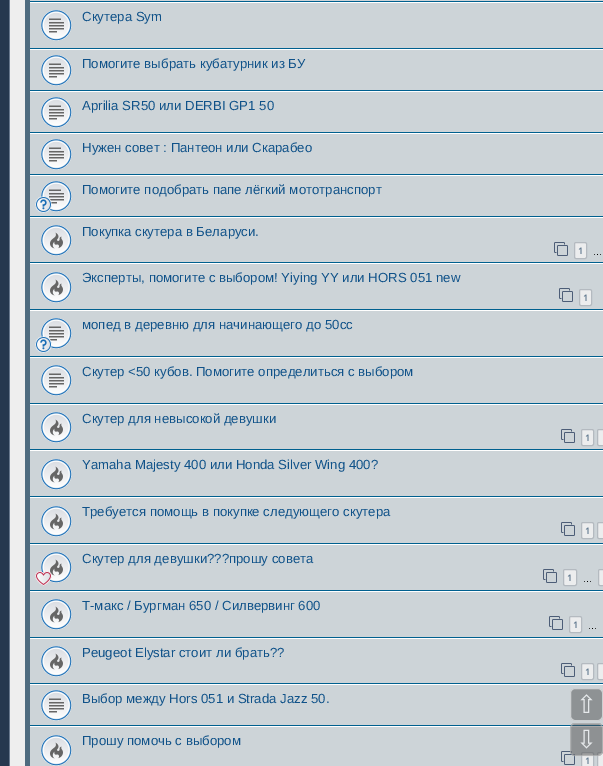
%!PS
<< /PageSize [603 766] /PageUsesTransparency true >> setpagedevice
/rgb { dup -16 bitshift 255 div exch dup -8 bitshift 255 and 255 div exch 255 and 255 div setrgbcolor } def
/font { [ exch dup neg 0 0 3 -1 roll 0 0 ] selectfont } def
/text { moveto show } def
/alpha { dup .setfillconstantalpha .setstrokeconstantalpha } def
/roundrect { 5 dict begin { /r /h /w /y /x } { exch def } forall
  x r add y moveto x w add y 2 copy h add r arct x w add y h add x 1 index r arct
  x y h add x y r arct x y 2 copy exch w add exch r arct closepath end } def
/picture { 5 dict begin { /h /w /y /x /name } { exch def } forall
  gsave x y translate w h scale
  w h 8 [w 0 0 h 0 0] name (r) file false 3 colorimage grestore end } def
0 .pushpdf14devicefilter
0 766 translate 1 -1 scale
4 setmiterlimit
/s1 { /LiberationSans-Regular 13.2 font 16#105289 rgb } def
/s2 { /OpenSans-SemiBold 9 font 16#5C758C rgb } def
/s3 { /LiberationSans-Regular 9 font 16#000000 rgb } def
/s4 { /DejaVuSans-Regular 25 font 16#E6E9EB rgb } def
16#26384F rgb
0 0 603 766 rectfill
16#EEEEEE rgb
10 0 15 766 rectfill
16#69798E rgb
9 0 1 766 rectfill
16#4E6B7F rgb
25 0 5 766 rectfill
16#CDD4D8 rgb
30 0 573 1 rectfill
16#00608F rgb
30 1 573 1 rectfill
16#CDD4D8 rgb
30 3 573 45 rectfill
16#FFFFFF rgb
30 2 573 1 rectfill
16#00608F rgb
30 48 573 1 rectfill
(pic1.raw) 41 10 31 31 picture
s1
(Скутера Sym) 82 21 text
16#CDD4D8 rgb
30 50 573 40 rectfill
16#FFFFFF rgb
30 49 573 1 rectfill
16#00608F rgb
30 90 573 1 rectfill
(pic1.raw) 41 55 31 31 picture
s1
(Помогите выбрать кубатурник из БУ) 82 68 text
16#CDD4D8 rgb
30 92 573 40 rectfill
16#FFFFFF rgb
30 91 573 1 rectfill
16#00608F rgb
30 132 573 1 rectfill
(pic1.raw) 41 97 31 31 picture
s1
(Aprilia SR50 или DERBI GP1 50) 82 110 text
16#CDD4D8 rgb
30 134 573 40 rectfill
16#FFFFFF rgb
30 133 573 1 rectfill
16#00608F rgb
30 174 573 1 rectfill
(pic1.raw) 41 139 31 31 picture
s1
(Нужен совет : Пантеон или Скарабео) 82 152 text
16#CDD4D8 rgb
30 176 573 40 rectfill
16#FFFFFF rgb
30 175 573 1 rectfill
16#00608F rgb
30 216 573 1 rectfill
(pic1.raw) 41 181 31 31 picture
(pic2.raw) 35 196 17 17 picture
s1
(Помогите подобрать папе лёгкий мототранспорт) 82 194 text
16#CDD4D8 rgb
30 218 573 44 rectfill
16#FFFFFF rgb
30 217 573 1 rectfill
16#00608F rgb
30 262 573 1 rectfill
(pic3.raw) 41 225 31 31 picture
s1
(Покупка скутера в Беларуси.) 82 236 text
(pic4.raw) 554 242 14 14 picture
16#ECEDEE rgb
574.5 242.5 12 16 1.5 roundrect gsave fill grestore
16#B4BAC0 rgb
stroke
s2
(1) 578 254 text
s3
(…) 593 255 text
16#CDD4D8 rgb
30 264 573 45 rectfill
16#FFFFFF rgb
30 263 573 1 rectfill
16#00608F rgb
30 309 573 1 rectfill
(pic3.raw) 41 272 31 31 picture
s1
(Эксперты, помогите с выбором! Yiying YY или HORS 051 new) 82 282 text
(pic4.raw) 559 288 14 14 picture
16#ECEDEE rgb
579.5 289.5 12 16 1.5 roundrect gsave fill grestore
16#B4BAC0 rgb
stroke
s2
(1) 583 301 text
16#CDD4D8 rgb
30 311 573 45 rectfill
16#FFFFFF rgb
30 310 573 1 rectfill
16#00608F rgb
30 356 573 1 rectfill
(pic1.raw) 41 318 31 31 picture
(pic5.raw) 35 336 17 17 picture
s1
(мопед в деревню для начинающего до 50сс) 82 329 text
16#CDD4D8 rgb
30 358 573 45 rectfill
16#FFFFFF rgb
30 357 573 1 rectfill
16#00608F rgb
30 403 573 1 rectfill
(pic1.raw) 41 365 31 31 picture
s1
(Скутер <50 кубов. Помогите определиться с выбором) 82 376 text
16#CDD4D8 rgb
30 405 573 44 rectfill
16#FFFFFF rgb
30 404 573 1 rectfill
16#00608F rgb
30 449 573 1 rectfill
(pic3.raw) 41 412 31 31 picture
s1
(Скутер для невысокой девушки) 82 423 text
(pic4.raw) 561 429 14 14 picture
16#ECEDEE rgb
581.5 429.5 12 16 1.5 roundrect gsave fill grestore
16#B4BAC0 rgb
stroke
s2
(1) 585 441 text
16#ECEDEE rgb
597.5 429.5 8 16 1.5 roundrect gsave fill grestore
16#B4BAC0 rgb
stroke
16#CDD4D8 rgb
30 451 573 45 rectfill
16#FFFFFF rgb
30 450 573 1 rectfill
16#00608F rgb
30 496 573 1 rectfill
(pic3.raw) 41 459 31 31 picture
s1
(Yamaha Majesty 400 или Honda Silver Wing 400?) 82 469 text
16#CDD4D8 rgb
30 498 573 45 rectfill
16#FFFFFF rgb
30 497 573 1 rectfill
16#00608F rgb
30 543 573 1 rectfill
(pic3.raw) 41 506 31 31 picture
s1
(Требуется помощь в покупке следующего скутера) 82 516 text
(pic4.raw) 561 522 14 14 picture
16#ECEDEE rgb
581.5 522.5 12 16 1.5 roundrect gsave fill grestore
16#B4BAC0 rgb
stroke
s2
(1) 585 534 text
16#ECEDEE rgb
597.5 522.5 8 16 1.5 roundrect gsave fill grestore
16#B4BAC0 rgb
stroke
16#CDD4D8 rgb
30 545 573 45 rectfill
16#FFFFFF rgb
30 544 573 1 rectfill
16#00608F rgb
30 590 573 1 rectfill
(pic3.raw) 41 552 31 31 picture
(pic6.raw) 35 571 17 15 picture
s1
(Скутер для девушки???прошу совета) 82 563 text
(pic4.raw) 543 569 14 14 picture
16#ECEDEE rgb
563.5 569.5 13 16 1.5 roundrect gsave fill grestore
16#B4BAC0 rgb
stroke
s2
(1) 567 581 text
16#ECEDEE rgb
598.5 569.5 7 16 1.5 roundrect gsave fill grestore
16#B4BAC0 rgb
stroke
s3
(…) 583 582 text
16#CDD4D8 rgb
30 592 573 45 rectfill
16#FFFFFF rgb
30 591 573 1 rectfill
16#00608F rgb
30 637 573 1 rectfill
(pic3.raw) 41 599 31 31 picture
s1
(Т-макс / Бургман 650 / Силвервинг 600) 82 610 text
(pic4.raw) 549 616 14 14 picture
16#ECEDEE rgb
569.5 616.5 12 16 1.5 roundrect gsave fill grestore
16#B4BAC0 rgb
stroke
s2
(1) 573 628 text
s3
(…) 588 629 text
16#CDD4D8 rgb
30 639 573 44 rectfill
16#FFFFFF rgb
30 638 573 1 rectfill
16#00608F rgb
30 683 573 1 rectfill
(pic3.raw) 41 646 31 31 picture
s1
(Peugeot Elystar cтоит ли брать??) 82 657 text
(pic4.raw) 561 663 14 14 picture
16#ECEDEE rgb
581.5 663.5 12 16 1.5 roundrect gsave fill grestore
16#B4BAC0 rgb
stroke
s2
(1) 585 675 text
16#ECEDEE rgb
597.5 663.5 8 16 1.5 roundrect gsave fill grestore
16#B4BAC0 rgb
stroke
16#CDD4D8 rgb
30 685 573 40 rectfill
16#FFFFFF rgb
30 684 573 1 rectfill
16#00608F rgb
30 725 573 1 rectfill
(pic1.raw) 41 690 31 31 picture
s1
(Выбор между Hors 051 и Strada Jazz 50.) 82 703 text
16#CDD4D8 rgb
30 727 573 39 rectfill
16#FFFFFF rgb
30 726 573 1 rectfill
(pic3.raw) 41 735 31 31 picture
s1
(Прошу помочь с выбором) 82 745 text
(pic4.raw) 561 751 14 14 picture
16#ECEDEE rgb
581.5 752.5 12 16 1.5 roundrect gsave fill grestore
16#B4BAC0 rgb
stroke
s2
(1) 585 764 text
16#ECEDEE rgb
597.5 752.5 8 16 1.5 roundrect gsave fill grestore
16#B4BAC0 rgb
stroke
16#8E9294 rgb
570.5 688.5 32 32 4.5 roundrect gsave fill grestore
16#CDD0D2 rgb
stroke
s4
(⇧) 576 713 text
0.5 alpha
16#4F4F4F rgb
570 723 33 33 5 roundrect fill
16#CCCCCC rgb
570.5 723.5 32 32 4.5 roundrect stroke
1 alpha
s4
(⇩) 576 748 text
.poppdf14devicefilter showpage
